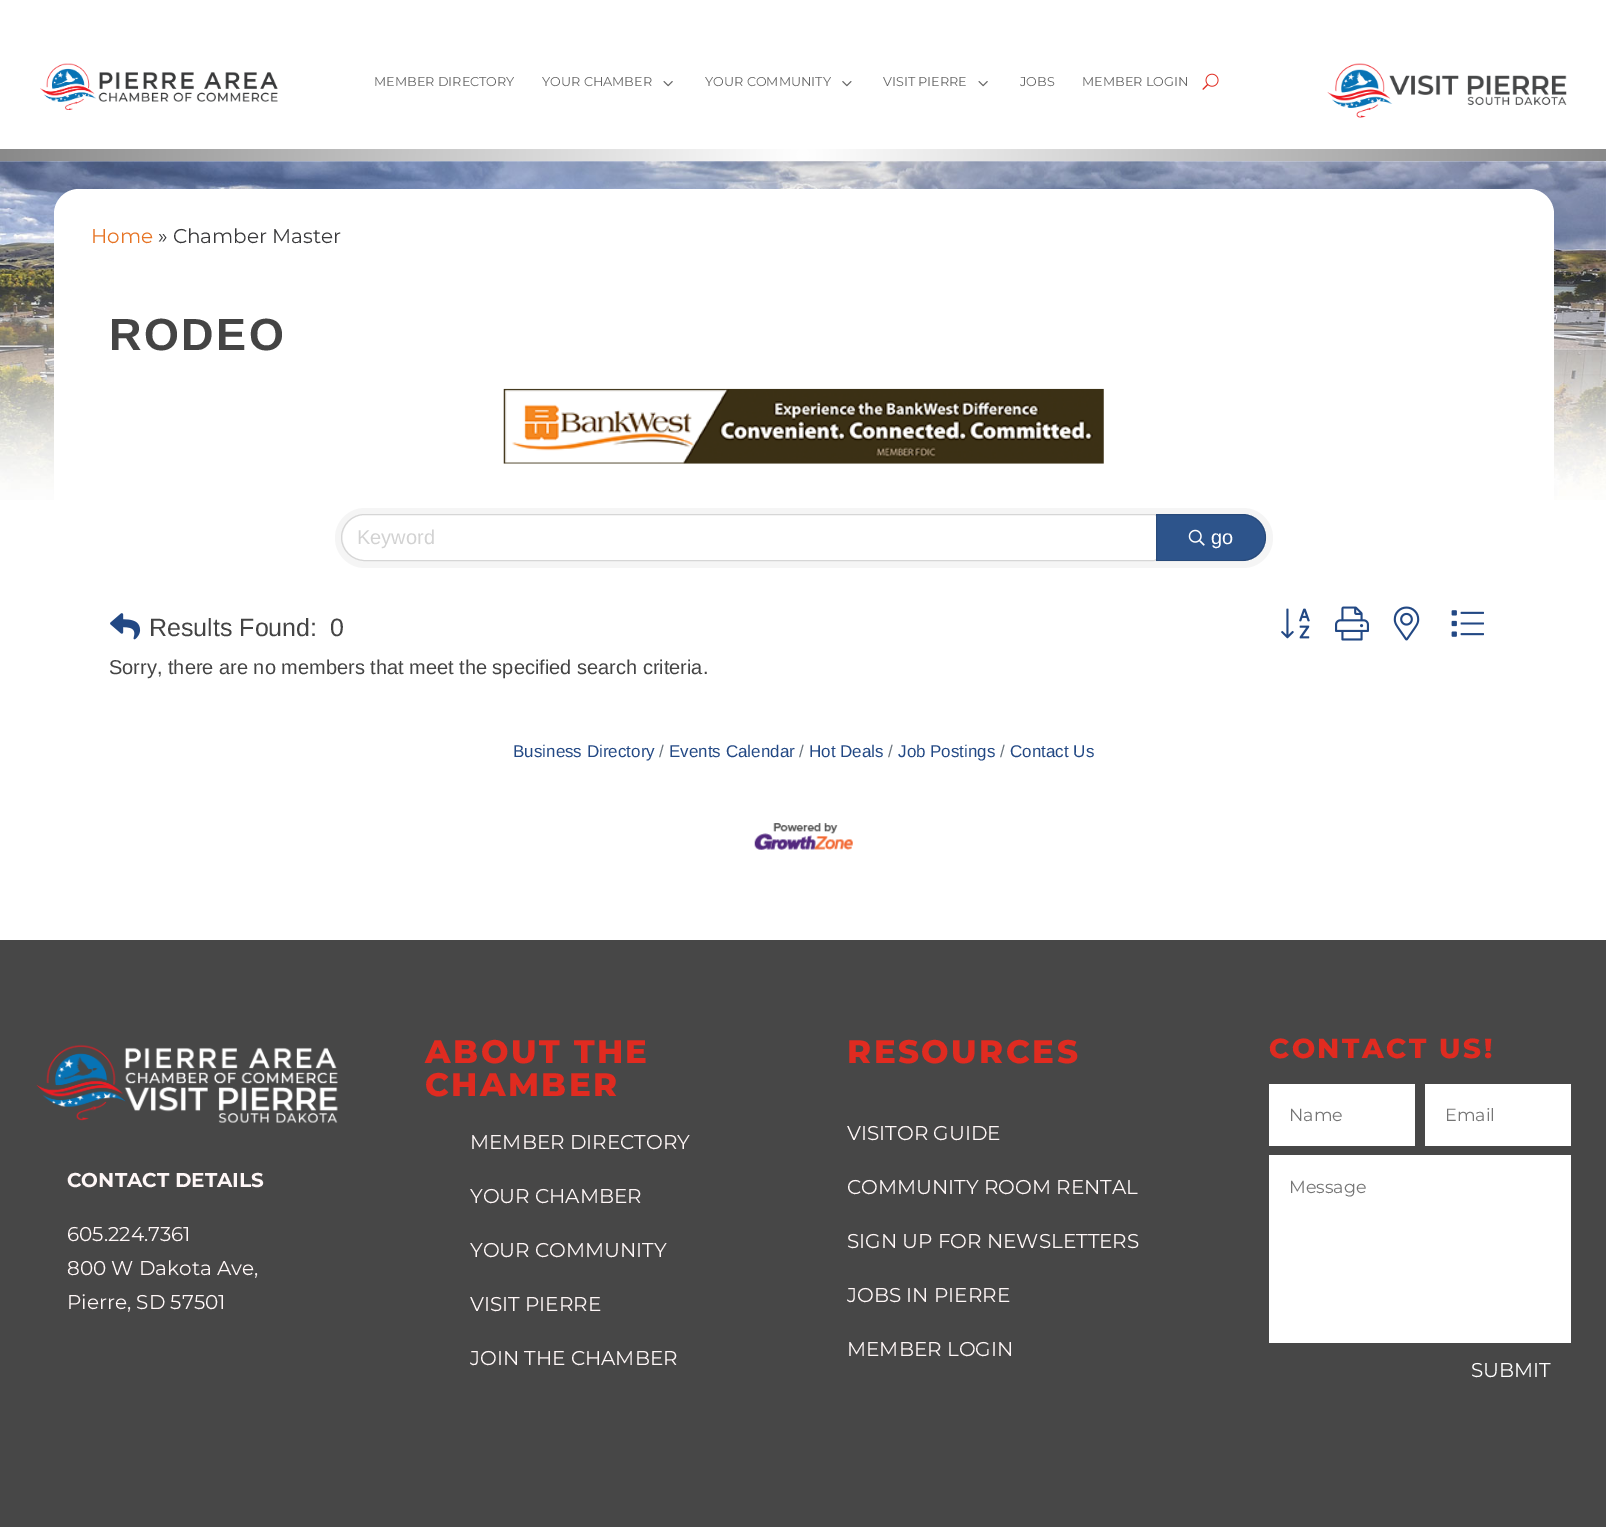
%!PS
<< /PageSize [1606 1527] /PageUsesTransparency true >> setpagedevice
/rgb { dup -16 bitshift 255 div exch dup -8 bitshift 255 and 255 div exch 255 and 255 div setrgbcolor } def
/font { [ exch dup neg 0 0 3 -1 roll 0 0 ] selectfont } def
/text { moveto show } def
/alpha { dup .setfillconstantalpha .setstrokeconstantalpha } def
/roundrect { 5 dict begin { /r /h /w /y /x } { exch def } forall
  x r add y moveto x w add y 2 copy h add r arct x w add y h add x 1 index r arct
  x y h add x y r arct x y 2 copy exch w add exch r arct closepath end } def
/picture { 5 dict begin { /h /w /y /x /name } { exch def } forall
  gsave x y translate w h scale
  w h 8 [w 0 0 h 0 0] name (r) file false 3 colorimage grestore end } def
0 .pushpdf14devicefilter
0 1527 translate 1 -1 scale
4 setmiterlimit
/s1 { /Montserrat-Thin 12.8 font 16#666666 rgb } def
/s2 { /Montserrat-Thin 20 font 16#E67425 rgb } def
/s3 { /Montserrat-Thin 20 font 16#39393B rgb } def
/s4 { /LiberationSans-Regular 20 font 16#D2D2D2 rgb } def
/s5 { /LiberationSans-Regular 20 font 16#FFFFFF rgb } def
/s6 { /LiberationSans-Regular 25 font 16#444444 rgb } def
/s7 { /LiberationSans-Regular 20 font 16#444444 rgb } def
/s8 { /LiberationSans-Regular 17 font 16#224884 rgb } def
/s9 { /LiberationSans-Regular 17 font 16#6C757D rgb } def
/s10 { /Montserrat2-Thin 20 font 16#FFF7F7 rgb } def
/s11 { /Montserrat-Thin 20 font 16#FFF7F7 rgb } def
/s12 { /Montserrat-Thin 17.5 font 16#757575 rgb } def
/s13 { /Montserrat-Thin 20 font 16#FFFFFF rgb } def
16#FFFFFF rgb
0 0 1606 1527 rectfill
(pic1.raw) 40 63 238 47 picture
s1
(MEMBER DIRECTORY) 374 86 text
(YOUR CHAMBER) 542 86 text
(pic2.raw) 663 81 10 6 picture
(YOUR COMMUNITY) 705 86 text
(pic3.raw) 842 81 10 6 picture
(VISIT PIERRE) 883 86 text
(pic2.raw) 978 81 10 6 picture
(JOBS) 1020 86 text
(MEMBER LOGIN) 1082 86 text
(pic4.raw) 1202 73 17 17 picture
(pic5.raw) 1327 63 240 55 picture
gsave 0 149 moveto 1606 149 lineto 1606 161 lineto 0 161 lineto closepath clip newpath 803 155 translate 803 803 scale
<< /ShadingType 3 /ColorSpace /DeviceRGB /Coords [0 0 0 0 0 1] /Extend [true true] /Function << /FunctionType 2 /Domain [0 1] /C0 [1 1 1] /C1 [0.537 0.537 0.537] /N 1 >> >> shfill grestore
(pic6.raw) 0 161 1606 339 picture
16#FFFFFF rgb
54 189 1500 720 25 roundrect fill
s2
(Home) 91 243 text
s3
(» Chamber Master) 158 243 text
/LiberationSans-Bold 45 font
16#444444 rgb
109 350 moveto 2.5 0 (RODEO) ashow
(pic7.raw) 503 388 601 76 picture
16#F5F5F5 rgb
335 508 938 60 30 roundrect fill
16#FFFFFF rgb
365.5 515 moveto 1153.5 515 lineto 1155 515 1156 516 1156 517.5 curveto 1156 557.5 lineto 1156 559 1155 560 1153.5 560 curveto 365.5 560 lineto 353 560 343 550 343 537.5 curveto 343 525 353 515 365.5 515 curveto closepath fill
16#D6D6D6 rgb
364.5 514.5 moveto 1154 514.5 lineto 1156 514.5 1157.5 516 1157.5 518 curveto 1157.5 557 lineto 1157.5 559 1156 560.5 1154 560.5 curveto 364.5 560.5 lineto 352 560.5 341.5 550 341.5 537.5 curveto 341.5 525 352 514.5 364.5 514.5 curveto closepath stroke
s4
(Keyword) 357 544 text
16#2D548B rgb
1156 514 moveto 1242.5 514 lineto 1255.5 514 1266 524.5 1266 537.5 curveto 1266 550.5 1255.5 561 1242.5 561 curveto 1156 561 lineto closepath fill
0.12 alpha
16#000000 rgb
1156.5 514.5 moveto 1242.5 514.5 lineto 1255 514.5 1265.5 525 1265.5 537.5 curveto 1265.5 550 1255 560.5 1242.5 560.5 curveto 1156.5 560.5 lineto closepath stroke
1 alpha
(pic8.raw) 1188 529 17 17 picture
s5
(go) 1211 544 text
(pic9.raw) 110 613 31 27 picture
s6
(Results Found:) 149 636 text
(0) 330 636 text
(pic10.raw) 1281 608 29 31 picture
(pic11.raw) 1335 606 34 35 picture
(pic12.raw) 1393 606 27 35 picture
(pic13.raw) 1451 610 33 27 picture
s7
(Sorry, there are no members that meet the specified search criteria.) 109 674 text
s8
(Business Directory) 513 757 text
s9
(/) 659 757 text
s8
(Events Calendar) 669 757 text
s9
(/) 799 757 text
s8
(Hot Deals) 809 757 text
s9
(/) 888 757 text
s8
(Job Postings) 898 757 text
s9
(/) 1000 757 text
s8
(Contact Us) 1010 757 text
(pic14.raw) 754 823 99 27 picture
16#474747 rgb
0 940 1606 587 rectfill
(pic15.raw) 36 1044 302 79 picture
s10
(CONTACT DETAILS) 67 1187 text
s11
(605.224.7361) 67 1241 text
(800 W Dakota Ave,) 67 1275 text
(Pierre, SD 57501) 67 1309 text
/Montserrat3-Thin 32.5 font
16#E02B20 rgb
425 1063 moveto 2.5 0 (ABOUT THE) ashow
425 1096 moveto 2.5 0 (CHAMBER) ashow
s11
(MEMBER DIRECTORY) 470 1149 text
(YOUR CHAMBER) 470 1203 text
(YOUR COMMUNITY) 470 1257 text
(VISIT PIERRE) 470 1311 text
(JOIN THE CHAMBER) 470 1365 text
/Montserrat3-Thin 32.5 font
16#E02B20 rgb
847 1063 moveto 2.5 0 (RESOURCES) ashow
s11
(VISITOR GUIDE) 847 1140 text
(COMMUNITY ROOM RENTAL) 847 1194 text
(SIGN UP FOR NEWSLETTERS) 847 1248 text
(JOBS IN PIERRE) 847 1302 text
(MEMBER LOGIN) 847 1356 text
/Montserrat3-Thin 27.5 font
16#E02B20 rgb
1269 1058 moveto 2.5 0 (CONTACT US!) ashow
16#FFFFFF rgb
1269 1084 146 62 rectfill
s12
(Name) 1289 1121 text
16#FFFFFF rgb
1425 1084 146 62 rectfill
s12
(Email) 1445 1121 text
16#FFFFFF rgb
1269 1155 302 188 rectfill
s12
(Message) 1289 1193 text
s13
(SUBMIT) 1471 1377 text
.poppdf14devicefilter showpage
